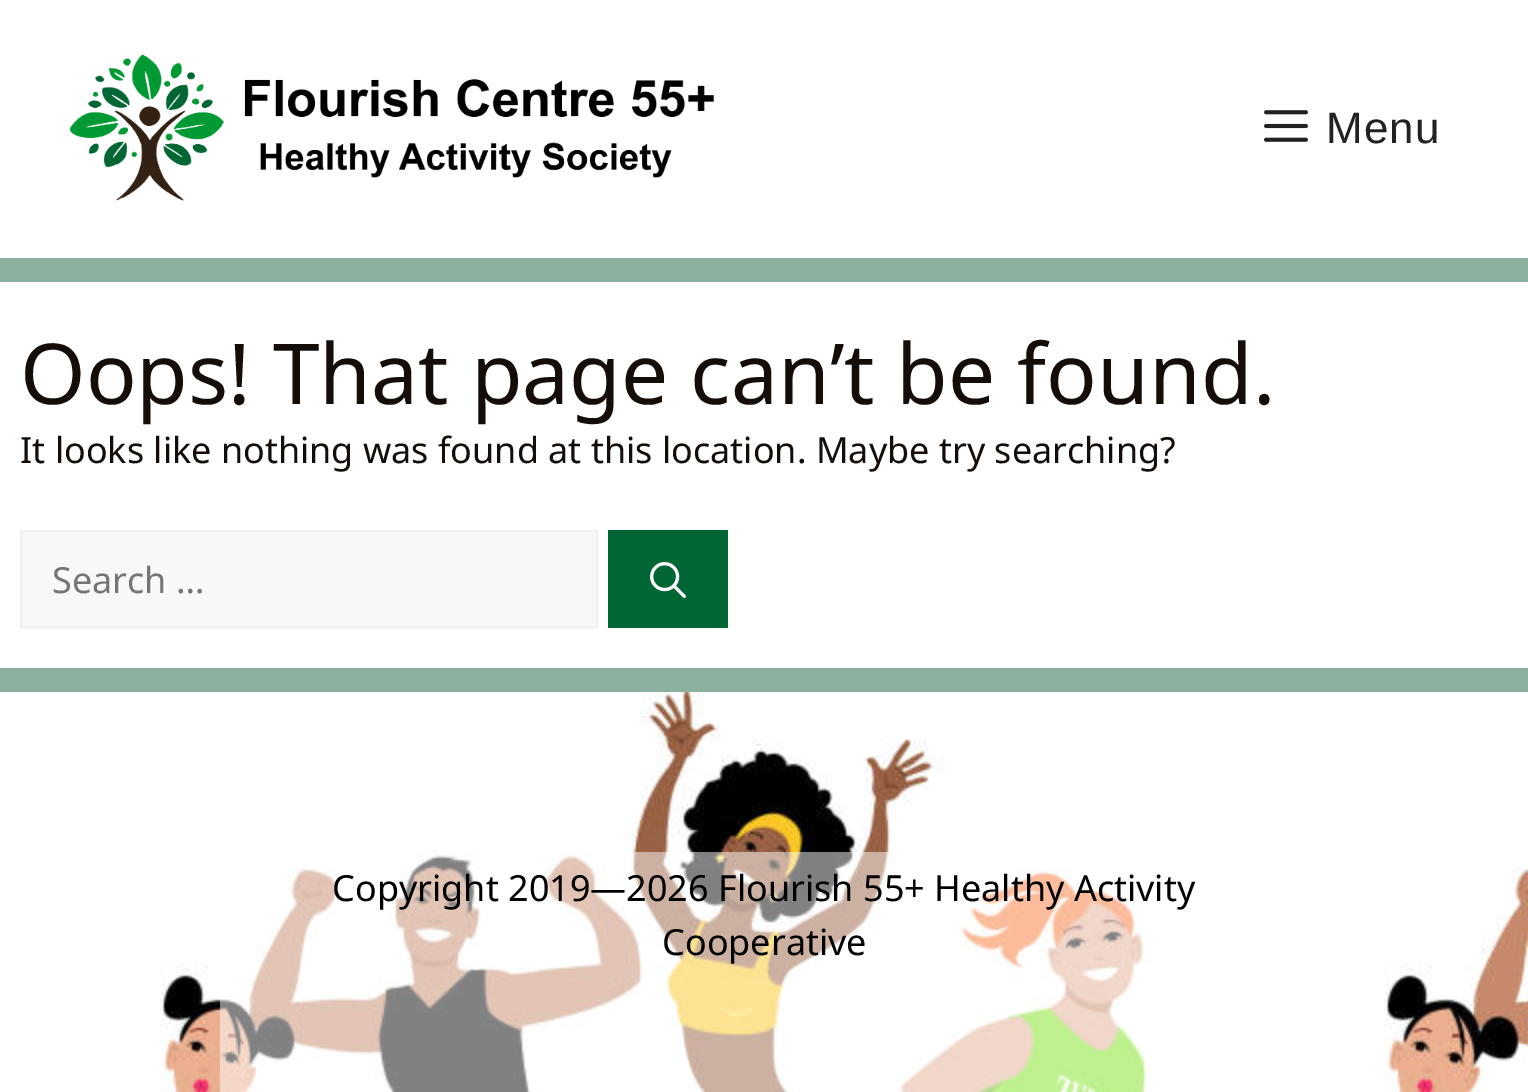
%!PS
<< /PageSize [1528 1092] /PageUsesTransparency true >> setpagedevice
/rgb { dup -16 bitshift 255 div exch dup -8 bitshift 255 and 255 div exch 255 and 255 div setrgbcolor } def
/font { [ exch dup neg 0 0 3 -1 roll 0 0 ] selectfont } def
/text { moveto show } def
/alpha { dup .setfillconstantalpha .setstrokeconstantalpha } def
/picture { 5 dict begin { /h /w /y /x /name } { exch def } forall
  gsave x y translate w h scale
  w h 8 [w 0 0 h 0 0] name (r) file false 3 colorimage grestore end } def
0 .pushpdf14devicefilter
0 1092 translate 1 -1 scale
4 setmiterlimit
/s1 { /NotoSans-Regular 84 font 16#140D08 rgb } def
/s2 { /NotoSans-Regular 36 font 16#140D08 rgb } def
/s3 { /NotoSans-Regular 36 font 16#757575 rgb } def
/s4 { /NotoSans-Regular 36 font 16#000000 rgb } def
16#8BB09D rgb
0 0 1528 1092 rectfill
16#FFFFFF rgb
0 0 1528 258 rectfill
(pic1.raw) 69 54 646 147 picture
(pic2.raw) 1264 110 44 32 picture
/LiberationSans-Regular 44 font
16#222222 rgb
1326 143 moveto 1 0 (Menu) ashow
16#FFFFFF rgb
0 282 1528 386 rectfill
s1
(Oops! That page can’t be found.) 20 404 text
s2
(It looks like nothing was found at this location. Maybe try searching?) 20 463 text
16#F7F8F9 rgb
21 531 moveto 597 531 lineto 597 627 lineto 21 627 lineto closepath gsave fill grestore
16#F0F0F0 rgb
2 setlinewidth
stroke
s3
(Search …) 52 593 text
16#006633 rgb
608 530 120 98 rectfill
(pic3.raw) 650 562 36 36 picture
(pic4.raw) 0 692 1528 400 picture
0.5 alpha
16#FFFFFF rgb
220 852 932 240 rectfill
1 alpha
s4
(Copyright 2019—2026 Flourish 55+ Healthy Activity) 332 901 text
(Cooperative) 662 955 text
.poppdf14devicefilter showpage
